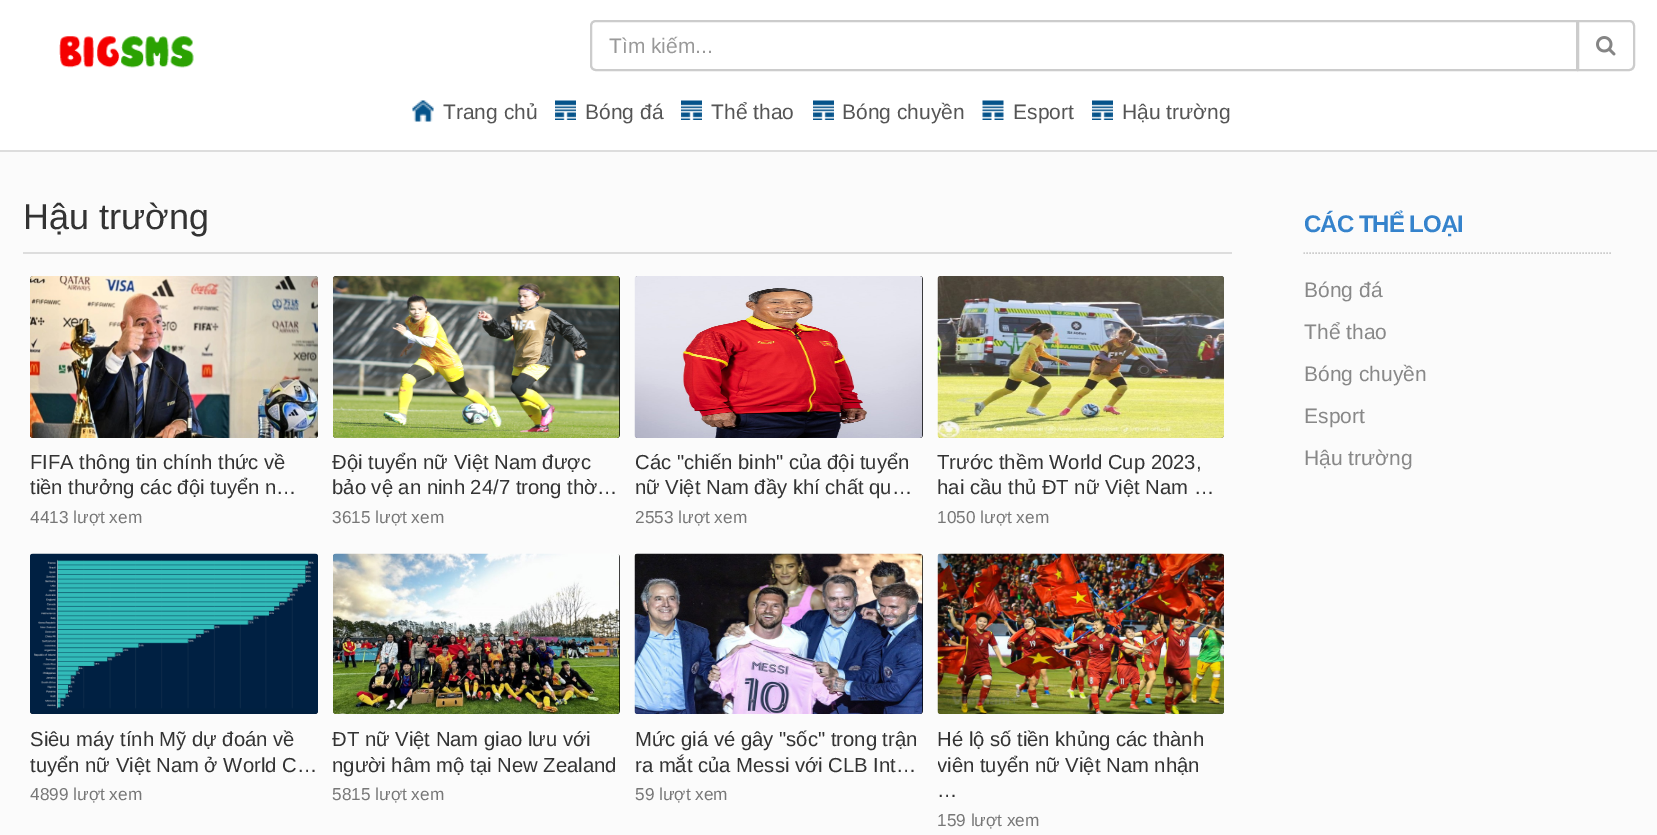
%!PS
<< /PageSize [1657 835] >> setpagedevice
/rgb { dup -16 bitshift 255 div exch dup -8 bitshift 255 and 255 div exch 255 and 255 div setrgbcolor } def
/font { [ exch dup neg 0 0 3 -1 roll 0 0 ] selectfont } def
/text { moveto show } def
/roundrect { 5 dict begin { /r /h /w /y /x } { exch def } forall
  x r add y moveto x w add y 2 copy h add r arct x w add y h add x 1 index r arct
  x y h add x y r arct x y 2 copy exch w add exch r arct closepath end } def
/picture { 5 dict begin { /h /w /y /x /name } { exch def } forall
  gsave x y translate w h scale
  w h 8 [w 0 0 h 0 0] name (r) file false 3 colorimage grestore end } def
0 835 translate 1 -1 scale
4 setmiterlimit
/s1 { /LiberationSans-Regular 21 font 16#999999 rgb } def
/s2 { /LiberationSans-Regular 21 font 16#555555 rgb } def
/s3 { /LiberationSans-Regular 36 font 16#333333 rgb } def
/s4 { /LiberationSans-Regular 20.25 font 16#333333 rgb } def
/s5 { /LiberationSans-Regular 17.25 font 16#777777 rgb } def
/s6 { /LiberationSans-Regular 21 font 16#888888 rgb } def
16#FBFBFB rgb
0 0 1657 835 rectfill
16#FFFFFF rgb
0 0 1657 150 rectfill
16#DDDDDD rgb
0 150 1657 2 rectfill
(pic1.raw) 59 36 135 32 picture
16#CCCCCC rgb
2 setlinewidth
596 21 moveto 1577 21 lineto 1577 70 lineto 596 70 lineto 593 70 591 68 591 65 curveto 591 26 lineto 591 23 593 21 596 21 curveto closepath stroke
s1
(Tìm kiếm...) 609 53 text
16#FFFFFF rgb
1578 21 moveto 1629 21 lineto 1632 21 1634 23 1634 26 curveto 1634 65 lineto 1634 68 1632 70 1629 70 curveto 1578 70 lineto closepath gsave fill grestore
16#CCCCCC rgb
stroke
(pic2.raw) 1596 36 20 20 picture
(pic3.raw) 412 100 22 22 picture
s2
(Trang chủ) 443 119 text
(pic4.raw) 555 100 21 20 picture
(Bóng đá) 585 119 text
(pic4.raw) 681 100 21 20 picture
(Thể thao) 711 119 text
(pic4.raw) 813 100 21 20 picture
(Bóng chuyền) 842 119 text
(pic5.raw) 982 100 22 20 picture
(Esport) 1013 119 text
(pic6.raw) 1092 100 21 20 picture
(Hậu trường) 1122 119 text
16#DDDDDD rgb
23 252 1209 2 rectfill
s3
(Hậu trường) 23 229 text
(pic7.raw) 30 276 288 162 picture
s4
(FIFA thông tin chính thức về) 30 469 text
(tiền thưởng các đội tuyển n…) 30 494 text
s5
(4413 lượt xem) 30 523 text
16#000000 rgb
333 276 287 162 3 roundrect fill
(pic8.raw) 333 276 287 162 picture
s4
(Đội tuyển nữ Việt Nam được) 332 469 text
(bảo vệ an ninh 24/7 trong thờ…) 332 494 text
s5
(3615 lượt xem) 332 523 text
16#000000 rgb
635 276 288 162 3 roundrect fill
(pic9.raw) 634 276 289 162 picture
s4
(Các "chiến binh" của đội tuyển) 635 469 text
(nữ Việt Nam đầy khí chất qu…) 635 494 text
s5
(2553 lượt xem) 635 523 text
(pic10.raw) 937 276 287 162 picture
s4
(Trước thềm World Cup 2023,) 937 469 text
(hai cầu thủ ĐT nữ Việt Nam …) 937 494 text
s5
(1050 lượt xem) 937 523 text
(pic11.raw) 30 553 288 161 picture
s4
(Siêu máy tính Mỹ dự đoán về) 30 746 text
(tuyển nữ Việt Nam ở World C…) 30 772 text
s5
(4899 lượt xem) 30 800 text
16#000000 rgb
333 554 287 160 3 roundrect fill
(pic12.raw) 333 553 287 161 picture
s4
(ĐT nữ Việt Nam giao lưu với) 332 746 text
(người hâm mộ tại New Zealand) 332 772 text
s5
(5815 lượt xem) 332 800 text
16#000000 rgb
635 554 288 160 3 roundrect fill
(pic13.raw) 634 553 289 161 picture
s4
(Mức giá vé gây "sốc" trong trận) 635 746 text
(ra mắt của Messi với CLB Int…) 635 772 text
s5
(59 lượt xem) 635 800 text
(pic14.raw) 937 553 287 161 picture
s4
(Hé lộ số tiền khủng các thành) 937 746 text
gsave
938 726 286 77 rectclip
(viên tuyển nữ Việt Nam nhận) 937 772 text
grestore
(…) 937 797 text
s5
(159 lượt xem) 937 826 text
16#CCCCCC rgb
1.5 setlinewidth
[1.5 1.5] 0 setdash
1303.5 253 moveto 1612.5 253 lineto stroke
/LiberationSans-Bold 24 font
16#3583CC rgb
1304 232 moveto -1 0 (CÁC THỂ LOẠI) ashow
s6
(Bóng đá) 1304 297 text
(Thể thao) 1304 339 text
(Bóng chuyền) 1304 381 text
(Esport) 1304 423 text
(Hậu trường) 1304 465 text
showpage
